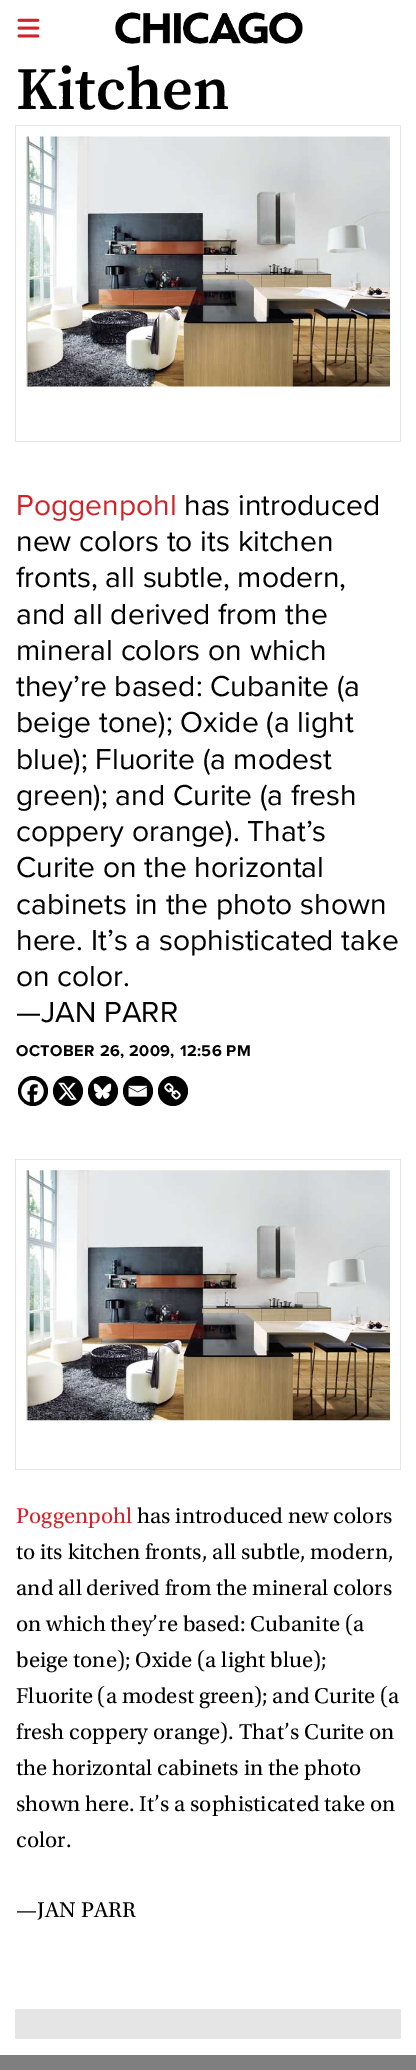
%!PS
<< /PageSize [416 2070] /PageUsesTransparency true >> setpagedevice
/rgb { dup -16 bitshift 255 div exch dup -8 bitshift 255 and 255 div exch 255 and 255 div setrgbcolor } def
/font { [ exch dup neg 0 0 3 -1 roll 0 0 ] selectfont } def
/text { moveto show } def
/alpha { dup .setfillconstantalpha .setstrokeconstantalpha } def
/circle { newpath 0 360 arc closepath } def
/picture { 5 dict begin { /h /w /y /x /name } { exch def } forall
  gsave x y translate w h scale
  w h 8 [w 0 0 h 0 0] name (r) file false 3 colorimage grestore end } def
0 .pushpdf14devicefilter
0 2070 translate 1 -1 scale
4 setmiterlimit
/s1 { /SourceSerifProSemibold-SemiBold 60 font 16#000000 rgb } def
/s2 { /ProximaNova-Regular 30 font 16#D2232A rgb } def
/s3 { /ProximaNova-Regular 30 font 16#000000 rgb } def
16#FFFFFF rgb
0 0 416 2070 rectfill
(pic1.raw) 17 18 23 20 picture
(pic2.raw) 115 12 188 32 picture
s1
(Kitchen) 16 109 text
16#E6E6E6 rgb
15 125 moveto 401 125 lineto 401 126 lineto 16 126 lineto closepath fill
0.1 alpha
16#000000 rgb
15 442 moveto 15 125 lineto 16 126 lineto 16 442 lineto closepath fill
1 alpha
16#E6E6E6 rgb
401 126 moveto 401 442 lineto 400 441 lineto 400 126 lineto closepath fill
0.1 alpha
16#000000 rgb
401 442 moveto 16 442 lineto 16 441 lineto 400 441 lineto closepath fill
1 alpha
(pic3.raw) 26 136 364 251 picture
s2
(Poggenpohl) 16 515 text
s3
(has introduced) 184 515 text
(new colors to its kitchen) 16 551 text
(fronts, all subtle, modern,) 16 587 text
(and all derived from the) 16 624 text
(mineral colors on which) 16 660 text
(they’re based: Cubanite \(a) 16 696 text
(beige tone\); Oxide \(a light) 16 732 text
(blue\); Fluorite \(a modest) 16 769 text
(green\); and Curite \(a fresh) 16 805 text
(coppery orange\). That’s) 16 841 text
(Curite on the horizontal) 16 877 text
(cabinets in the photo shown) 16 914 text
(here. It’s a sophisticated take) 16 950 text
(on color.) 16 986 text
(—JAN PARR) 16 1022 text
/ProximaNova-Bold 16.25 font
16 1056 moveto 0.4 0 (OCTOBER 26, 2009, 12:56 PM) ashow
33 1091 15 circle fill
(pic4.raw) 21 1080 23 23 picture
68 1091 15 circle fill
(pic5.raw) 58 1082 19 18 picture
103 1091 15 circle fill
(pic6.raw) 93 1083 19 16 picture
138 1091 15 circle fill
(pic7.raw) 128 1085 19 12 picture
173 1091 15 circle fill
(pic8.raw) 164 1083 17 17 picture
16#E6E6E6 rgb
15 1159 moveto 401 1159 lineto 401 1160 lineto 16 1160 lineto closepath fill
0.1 alpha
16#000000 rgb
15 1470 moveto 15 1159 lineto 16 1160 lineto 16 1470 lineto closepath fill
1 alpha
16#E6E6E6 rgb
401 1160 moveto 401 1470 lineto 400 1469 lineto 400 1160 lineto closepath fill
0.1 alpha
16#000000 rgb
401 1470 moveto 16 1470 lineto 16 1469 lineto 400 1469 lineto closepath fill
1 alpha
(pic9.raw) 26 1170 364 251 picture
/Utopia-Regular 22.5 font
16#D2232A rgb
16 1523 moveto 0.1 0 (Poggenpohl) ashow
16#000000 rgb
137 1523 moveto 0.1 0 (has introduced new colors) ashow
16 1559 moveto 0.1 0 (to its kitchen fronts, all subtle, modern,) ashow
16 1595 moveto 0.1 0 (and all derived from the mineral colors) ashow
16 1631 moveto 0.1 0 (on which they’re based: Cubanite \(a) ashow
16 1667 moveto 0.1 0 (beige tone\); Oxide \(a light blue\);) ashow
16 1703 moveto 0.1 0 (Fluorite \(a modest green\); and Curite \(a) ashow
16 1739 moveto 0.1 0 (fresh coppery orange\). That’s Curite on) ashow
16 1775 moveto 0.1 0 (the horizontal cabinets in the photo) ashow
16 1811 moveto 0.1 0 (shown here. It’s a sophisticated take on) ashow
16 1847 moveto 0.1 0 (color.) ashow
16 1917 moveto 0.1 0 (—JAN PARR) ashow
16#E5E5E5 rgb
15 2009 386 30 rectfill
16#7F7F7F rgb
0 2055 416 15 rectfill
.poppdf14devicefilter showpage
